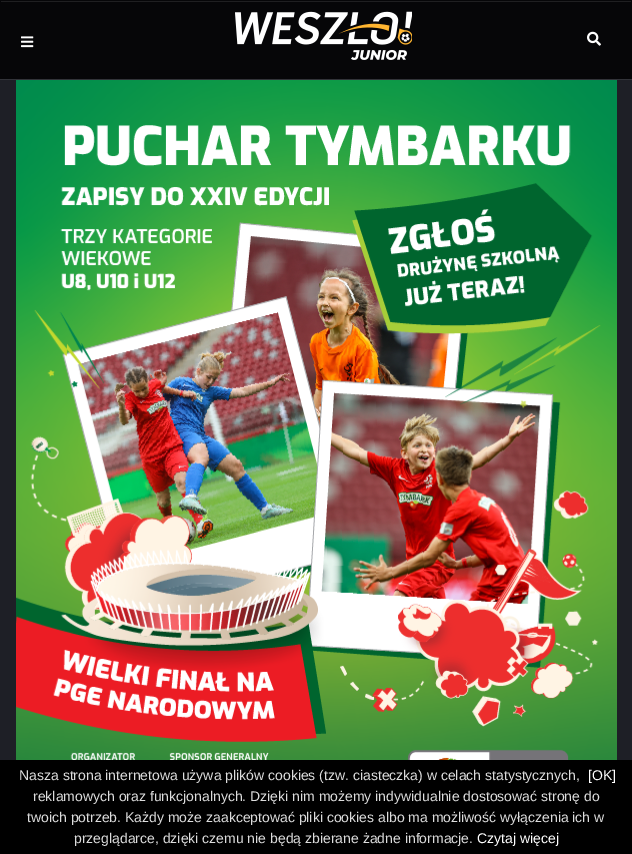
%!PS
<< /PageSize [632 854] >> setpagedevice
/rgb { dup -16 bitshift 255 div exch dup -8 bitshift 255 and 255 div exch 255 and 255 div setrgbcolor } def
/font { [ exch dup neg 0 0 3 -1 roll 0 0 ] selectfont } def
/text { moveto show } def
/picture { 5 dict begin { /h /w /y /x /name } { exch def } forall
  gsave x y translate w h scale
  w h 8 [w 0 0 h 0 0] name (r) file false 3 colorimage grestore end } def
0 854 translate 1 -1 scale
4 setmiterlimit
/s1 { /LiberationSans-Regular 14 font 16#DDDDDD rgb } def
/s2 { /LiberationSans-Regular 14 font 16#FFFFFF rgb } def
16#1E1F26 rgb
0 0 632 854 rectfill
16#323339 rgb
0 79 632 1 rectfill
16#060608 rgb
0 0 632 79 rectfill
16#1F1F21 rgb
1 1 630 1 rectfill
(pic1.raw) 587 31 14 15 picture
(pic2.raw) 21 36 13 12 picture
(pic3.raw) 235 11 177 49 picture
(pic4.raw) 16 80 601 680 picture
16#000000 rgb
0 760 632 94 rectfill
s1
(Nasza strona internetowa używa plików cookies \(tzw. ciasteczka\) w celach statystycznych,) 19 780 text
s2
([OK]) 588 780 text
s1
(reklamowych oraz funkcjonalnych. Dzięki nim możemy indywidualnie dostosować stronę do) 33 801 text
(twoich potrzeb. Każdy może zaakceptować pliki cookies albo ma możliwość wyłączenia ich w) 27 822 text
(przeglądarce, dzięki czemu nie będą zbierane żadne informacje.) 74 843 text
s2
(Czytaj więcej) 477 843 text
showpage
